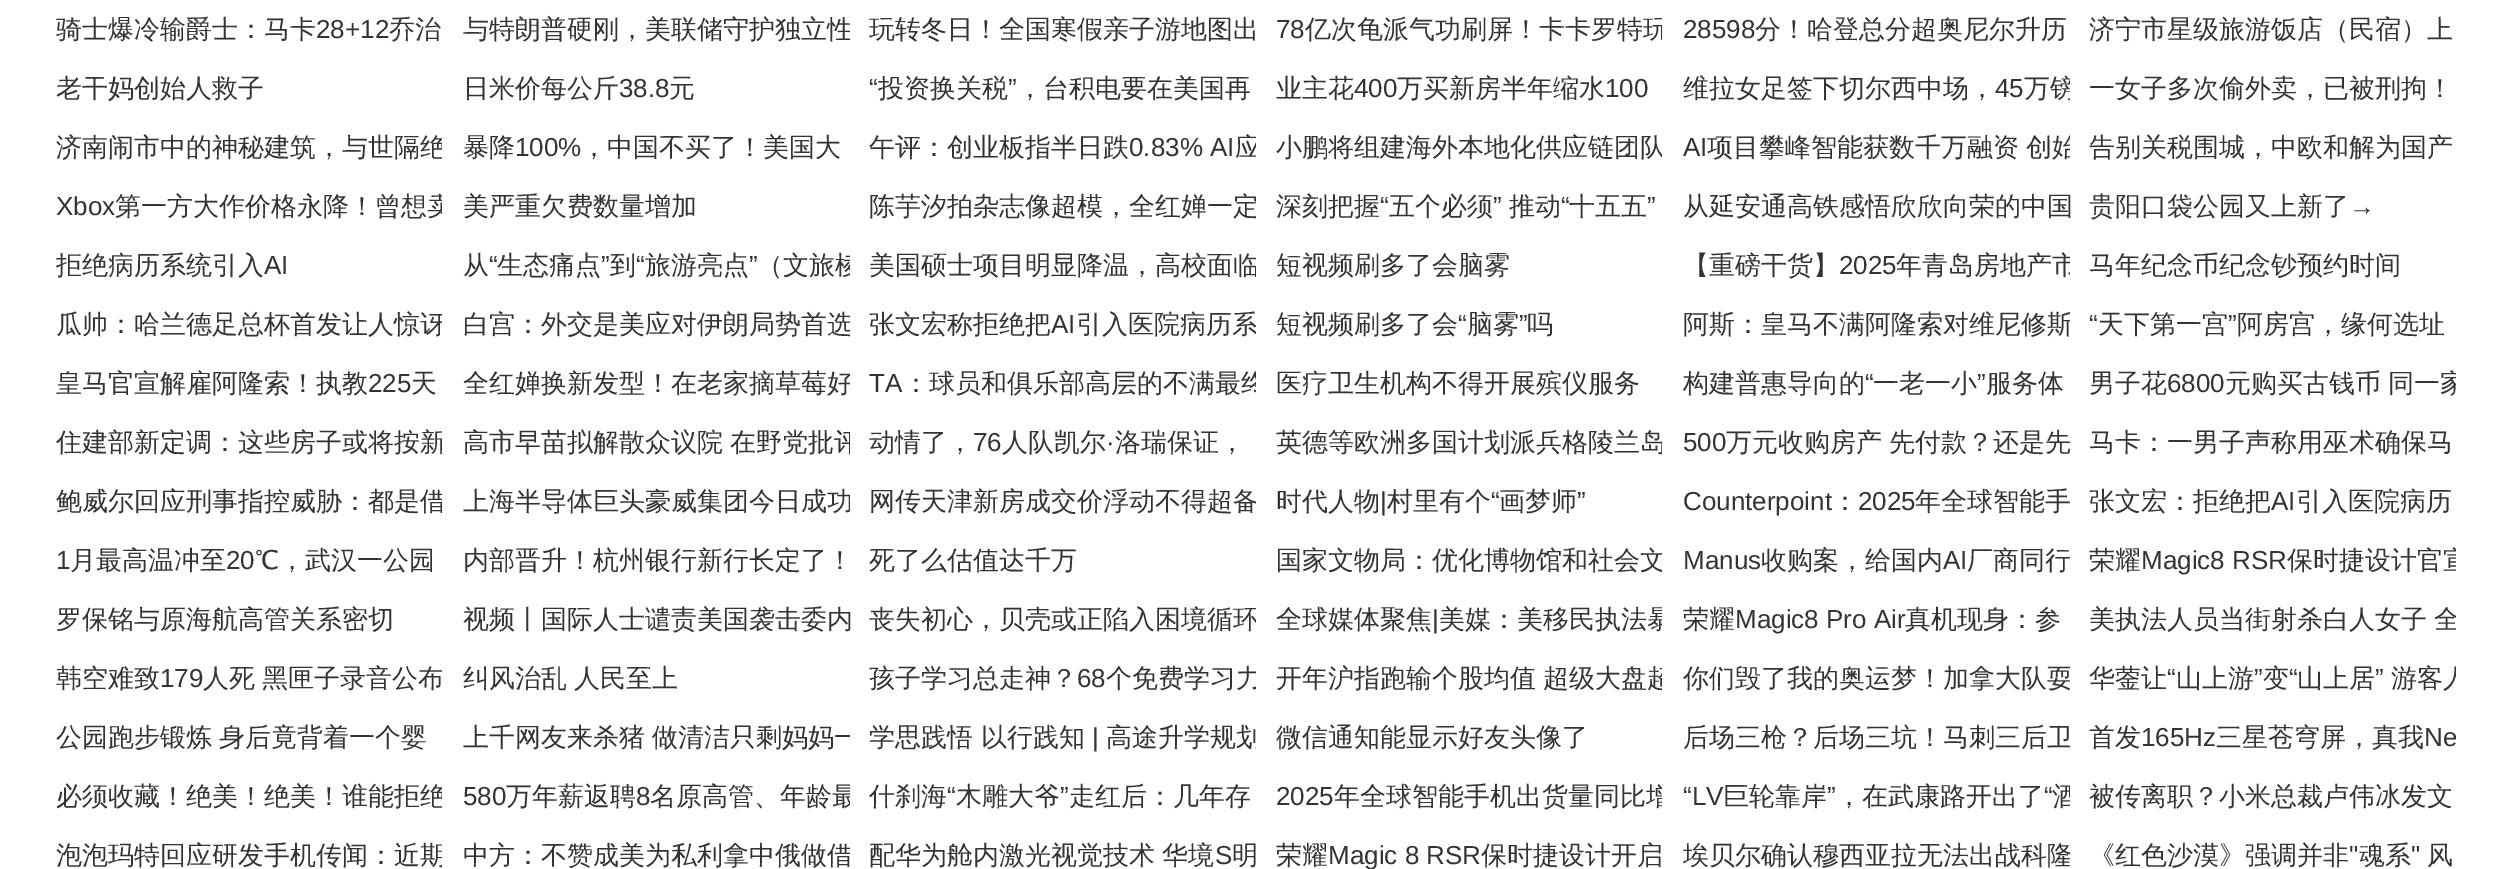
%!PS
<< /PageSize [2512 869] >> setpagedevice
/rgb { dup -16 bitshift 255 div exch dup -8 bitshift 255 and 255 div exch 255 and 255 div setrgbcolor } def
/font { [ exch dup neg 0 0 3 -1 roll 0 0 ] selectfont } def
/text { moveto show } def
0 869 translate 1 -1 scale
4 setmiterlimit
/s1 { /WenQuanYiZenHei-Medium 26 font 16#333333 rgb } def
/s2 { /LiberationSans-Regular 26 font 16#333333 rgb } def
16#FFFFFF rgb
0 0 2512 869 rectfill
s1
(骑士爆冷输爵士：马卡) 56 38 text
s2
(28+12) 316 38 text
s1
(乔治) 389 38 text
gsave
442 0 408 60 rectclip
(与特朗普硬刚，美联储守护独立性) 463 38 text
grestore
869 38 moveto -1 0 32 (玩转冬日！全国寒假亲子游地图出) widthshow
s2
(78) 1276 38 text
gsave
1256 0 406 60 rectclip
s1
(亿次龟派气功刷屏！卡卡罗特玩) 1305 38 text
grestore
(28598) 1683 38 text
/WenQuanYiZenHei-Medium 26 font
1755 38 moveto -1 0 32 (分！哈登总分超奥尼尔升历) widthshow
(济宁市星级旅游饭店（民宿）上) 2089 38 text
(老干妈创始人救子) 56 97 text
(日米价每公斤) 463 97 text
s2
(38.8) 619 97 text
s1
(元) 669 97 text
s2
(“) 869 97 text
s1
(投资换关税) 878 97 text
s2
(”) 1008 97 text
s1
(，台积电要在美国再) 1017 97 text
(业主花) 1276 97 text
s2
(400) 1354 97 text
s1
(万买新房半年缩水) 1397 97 text
s2
(100) 1605 97 text
s1
(维拉女足签下切尔西中场，) 1683 97 text
s2
(45) 1995 97 text
gsave
1662 60 408 58 rectclip
s1
(万镑) 2024 97 text
grestore
s1
(一女子多次偷外卖，已被刑拘！) 2089 97 text
gsave
56 118 386 60 rectclip
(济南闹市中的神秘建筑，与世隔绝) 56 156 text
grestore
(暴降) 463 156 text
s2
(100%) 515 156 text
s1
(，中国不买了！美国大) 581 156 text
(午评：创业板指半日跌) 869 156 text
s2
(0.83% AI) 1129 156 text
gsave
850 118 406 60 rectclip
s1
(应) 1235 156 text
grestore
gsave
1256 118 406 60 rectclip
s1
(小鹏将组建海外本地化供应链团队) 1276 156 text
grestore
(AI) 1683 156 text
gsave
1662 118 408 60 rectclip
/WenQuanYiZenHei-Medium 26 font
1707 156 moveto -1 0 32 (项目攀峰智能获数千万融资 创始) widthshow
grestore
s1
(告别关税围城，中欧和解为国产) 2089 156 text
s2
(Xbox) 56 215 text
gsave
56 178 386 58 rectclip
s1
(第一方大作价格永降！曾想卖) 115 215 text
grestore
s1
(美严重欠费数量增加) 463 215 text
gsave
850 178 406 58 rectclip
(陈芋汐拍杂志像超模，全红婵一定) 869 215 text
grestore
(深刻把握) 1276 215 text
s2
(“) 1380 215 text
s1
(五个必须) 1389 215 text
s2
(”) 1493 215 text
s1
(推动) 1509 215 text
s2
(“) 1561 215 text
s1
(十五五) 1569 215 text
s2
(”) 1647 215 text
s1
(从延安通高铁感悟欣欣向荣的中国) 1683 215 text
(贵阳口袋公园又上新了) 2089 215 text
s2
(→) 2349 215 text
s1
(拒绝病历系统引入) 56 274 text
s2
(AI) 264 274 text
s1
(从) 463 274 text
s2
(“) 489 274 text
s1
(生态痛点) 497 274 text
s2
(”) 601 274 text
s1
(到) 610 274 text
s2
(“) 636 274 text
s1
(旅游亮点) 645 274 text
s2
(”) 749 274 text
gsave
442 236 408 60 rectclip
s1
(（文旅棱) 757 274 text
grestore
gsave
850 236 406 60 rectclip
s1
(美国硕士项目明显降温，高校面临) 869 274 text
grestore
s1
(短视频刷多了会脑雾) 1276 274 text
(【重磅干货】) 1683 274 text
s2
(2025) 1839 274 text
gsave
1662 236 408 60 rectclip
s1
(年青岛房地产市) 1896 274 text
grestore
s1
(马年纪念币纪念钞预约时间) 2089 274 text
gsave
56 296 386 58 rectclip
(瓜帅：哈兰德足总杯首发让人惊讶) 56 333 text
grestore
gsave
442 296 408 58 rectclip
(白宫：外交是美应对伊朗局势首选) 463 333 text
grestore
(张文宏称拒绝把) 869 333 text
s2
(AI) 1051 333 text
gsave
850 296 406 58 rectclip
s1
(引入医院病历系) 1076 333 text
grestore
s1
(短视频刷多了会) 1276 333 text
s2
(“) 1458 333 text
s1
(脑雾) 1467 333 text
s2
(”) 1519 333 text
s1
(吗) 1527 333 text
gsave
1662 296 408 58 rectclip
(阿斯：皇马不满阿隆索对维尼修斯) 1683 333 text
grestore
s2
(“) 2089 333 text
s1
(天下第一宫) 2098 333 text
s2
(”) 2228 333 text
s1
(阿房宫，缘何选址) 2237 333 text
(皇马官宣解雇阿隆索！执教) 56 392 text
s2
(225) 368 392 text
s1
(天) 411 392 text
gsave
442 354 408 60 rectclip
(全红婵换新发型！在老家摘草莓好) 463 392 text
grestore
s2
(TA) 869 392 text
gsave
850 354 406 60 rectclip
s1
(：球员和俱乐部高层的不满最终) 903 392 text
grestore
s1
(医疗卫生机构不得开展殡仪服务) 1276 392 text
(构建普惠导向的) 1683 392 text
s2
(“) 1865 392 text
s1
(一老一小) 1873 392 text
s2
(”) 1977 392 text
s1
(服务体) 1986 392 text
(男子花) 2089 392 text
s2
(6800) 2167 392 text
gsave
2070 354 386 60 rectclip
/WenQuanYiZenHei-Medium 26 font
2225 392 moveto -1 0 32 (元购买古钱币 同一家) widthshow
grestore
gsave
56 414 386 58 rectclip
s1
(住建部新定调：这些房子或将按新) 56 451 text
grestore
gsave
442 414 408 58 rectclip
/WenQuanYiZenHei-Medium 26 font
463 451 moveto -1 0 32 (高市早苗拟解散众议院 在野党批评) widthshow
grestore
s1
(动情了，) 869 451 text
s2
(76) 973 451 text
s1
(人队凯尔) 1002 451 text
s2
(·) 1106 451 text
s1
(洛瑞保证，) 1115 451 text
gsave
1256 414 406 58 rectclip
1276 451 moveto -1 0 32 (英德等欧洲多国计划派兵格陵兰岛) widthshow
grestore
s2
(500) 1683 451 text
gsave
1662 414 408 58 rectclip
/WenQuanYiZenHei-Medium 26 font
1726 451 moveto -1 0 32 (万元收购房产 先付款？还是先) widthshow
grestore
s1
(马卡：一男子声称用巫术确保马) 2089 451 text
gsave
56 472 386 60 rectclip
(鲍威尔回应刑事指控威胁：都是借) 56 510 text
grestore
gsave
442 472 408 60 rectclip
(上海半导体巨头豪威集团今日成功) 463 510 text
grestore
gsave
850 472 406 60 rectclip
(网传天津新房成交价浮动不得超备) 869 510 text
grestore
(时代人物) 1276 510 text
s2
(|) 1380 510 text
s1
(村里有个) 1387 510 text
s2
(“) 1491 510 text
s1
(画梦师) 1499 510 text
s2
(”) 1577 510 text
(Counterpoint) 1683 510 text
s1
(：) 1832 510 text
s2
(2025) 1858 510 text
gsave
1662 472 408 60 rectclip
s1
(年全球智能手) 1915 510 text
grestore
s1
(张文宏：拒绝把) 2089 510 text
s2
(AI) 2271 510 text
s1
(引入医院病历) 2296 510 text
s2
(1) 56 569 text
s1
(月最高温冲至) 70 569 text
s2
(20) 226 569 text
s1
(℃，武汉一公园) 255 569 text
(内部晋升！杭州银行新行长定了！) 463 569 text
(死了么估值达千万) 869 569 text
gsave
1256 532 406 58 rectclip
(国家文物局：优化博物馆和社会文) 1276 569 text
grestore
s2
(Manus) 1683 569 text
s1
(收购案，给国内) 1761 569 text
s2
(AI) 1943 569 text
s1
(厂商同行) 1967 569 text
(荣耀) 2089 569 text
s2
(Magic8 RSR) 2141 569 text
gsave
2070 532 386 58 rectclip
s1
(保时捷设计官宣) 2287 569 text
grestore
s1
(罗保铭与原海航高管关系密切) 56 628 text
(视频丨国际人士谴责美国袭击委内) 463 628 text
gsave
850 590 406 60 rectclip
(丧失初心，贝壳或正陷入困境循环) 869 628 text
grestore
(全球媒体聚焦) 1276 628 text
s2
(|) 1432 628 text
gsave
1256 590 406 60 rectclip
s1
(美媒：美移民执法暴) 1439 628 text
grestore
s1
(荣耀) 1683 628 text
s2
(Magic8 Pro Air) 1735 628 text
s1
(真机现身：参) 1905 628 text
gsave
2070 590 386 60 rectclip
2089 628 moveto -1 0 32 (美执法人员当街射杀白人女子 全) widthshow
grestore
(韩空难致) 56 687 text
s2
(179) 160 687 text
gsave
56 650 386 58 rectclip
/WenQuanYiZenHei-Medium 26 font
203 687 moveto -1 0 32 (人死 黑匣子录音公布) widthshow
grestore
/WenQuanYiZenHei-Medium 26 font
463 687 moveto -1 0 32 (纠风治乱 人民至上) widthshow
(孩子学习总走神？) 869 687 text
s2
(68) 1077 687 text
gsave
850 650 406 58 rectclip
s1
(个免费学习力) 1106 687 text
grestore
gsave
1256 650 406 58 rectclip
/WenQuanYiZenHei-Medium 26 font
1276 687 moveto -1 0 32 (开年沪指跑输个股均值 超级大盘超) widthshow
grestore
gsave
1662 650 408 58 rectclip
s1
(你们毁了我的奥运梦！加拿大队耍) 1683 687 text
grestore
s1
(华蓥让) 2089 687 text
s2
(“) 2167 687 text
s1
(山上游) 2176 687 text
s2
(”) 2254 687 text
s1
(变) 2263 687 text
s2
(“) 2289 687 text
s1
(山上居) 2297 687 text
s2
(”) 2375 687 text
gsave
2070 650 386 58 rectclip
s1
(游客人) 2391 687 text
grestore
/WenQuanYiZenHei-Medium 26 font
56 746 moveto -1 0 32 (公园跑步锻炼 身后竟背着一个婴) widthshow
gsave
442 708 408 60 rectclip
463 746 moveto -1 0 32 (上千网友来杀猪 做清洁只剩妈妈一) widthshow
grestore
(学思践悟 以行践知) 869 746 text
s2
(|) 1092 746 text
gsave
850 708 406 60 rectclip
s1
(高途升学规划) 1106 746 text
grestore
s1
(微信通知能显示好友头像了) 1276 746 text
gsave
1662 708 408 60 rectclip
(后场三枪？后场三坑！马刺三后卫) 1683 746 text
grestore
(首发) 2089 746 text
s2
(165Hz) 2141 746 text
s1
(三星苍穹屏，真我) 2216 746 text
gsave
2070 708 386 60 rectclip
s2
(Ne) 2424 746 text
grestore
gsave
56 768 386 58 rectclip
(必须收藏！绝美！绝美！谁能拒绝) 56 805 text
grestore
s2
(580) 463 805 text
s1
(万年薪返聘) 506 805 text
s2
(8) 636 805 text
gsave
442 768 408 58 rectclip
s1
(名原高管、年龄最) 650 805 text
grestore
s1
(什刹海) 869 805 text
s2
(“) 947 805 text
s1
(木雕大爷) 956 805 text
s2
(”) 1060 805 text
s1
(走红后：几年存) 1069 805 text
s2
(2025) 1276 805 text
gsave
1256 768 406 58 rectclip
s1
(年全球智能手机出货量同比增) 1334 805 text
grestore
(“LV) 1683 805 text
s1
(巨轮靠岸) 1723 805 text
s2
(”) 1827 805 text
s1
(，在武康路开出了) 1836 805 text
s2
(“) 2044 805 text
gsave
1662 768 408 58 rectclip
s1
(酒) 2052 805 text
grestore
s1
(被传离职？小米总裁卢伟冰发文) 2089 805 text
gsave
56 826 386 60 rectclip
(泡泡玛特回应研发手机传闻：近期) 56 864 text
grestore
gsave
442 826 408 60 rectclip
(中方：不赞成美为私利拿中俄做借) 463 864 text
grestore
869 864 moveto -1 0 32 (配华为舱内激光视觉技术 华境) widthshow
s2
(S) 1215 864 text
s1
(明) 1232 864 text
(荣耀) 1276 864 text
s2
(Magic 8 RSR) 1328 864 text
s1
(保时捷设计开启) 1481 864 text
gsave
1662 826 408 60 rectclip
(埃贝尔确认穆西亚拉无法出战科隆) 1683 864 text
grestore
(《红色沙漠》强调并非) 2089 864 text
s2
(") 2349 864 text
s1
(魂系) 2359 864 text
s2
(") 2411 864 text
s1
(风) 2427 864 text
showpage
